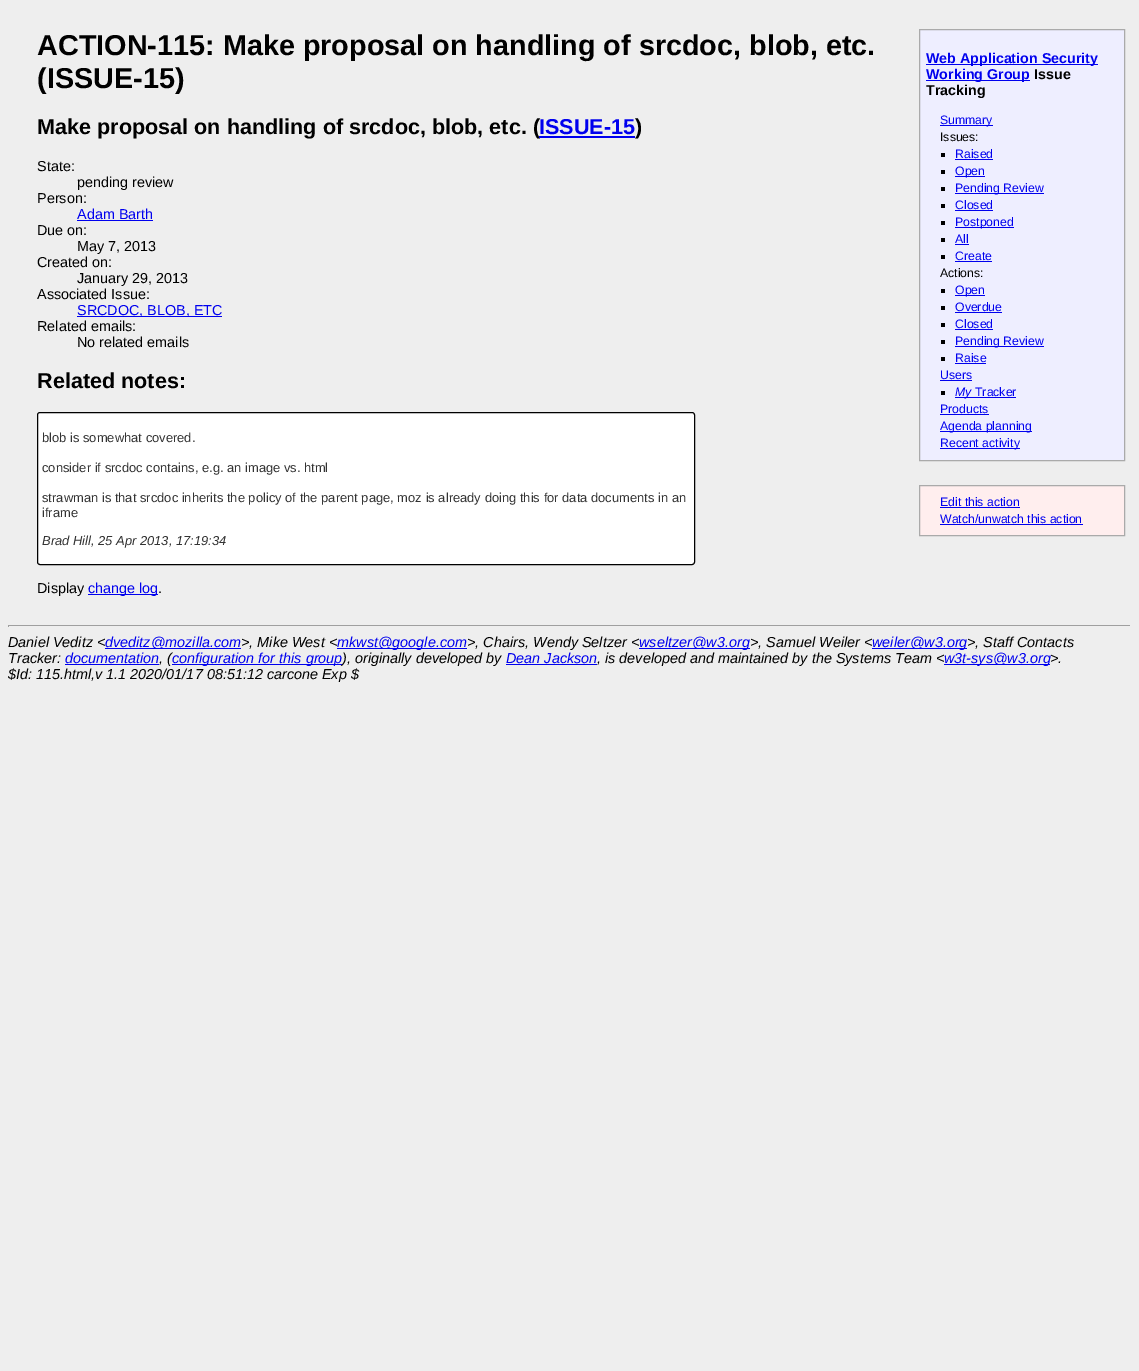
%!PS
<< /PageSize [1139 1371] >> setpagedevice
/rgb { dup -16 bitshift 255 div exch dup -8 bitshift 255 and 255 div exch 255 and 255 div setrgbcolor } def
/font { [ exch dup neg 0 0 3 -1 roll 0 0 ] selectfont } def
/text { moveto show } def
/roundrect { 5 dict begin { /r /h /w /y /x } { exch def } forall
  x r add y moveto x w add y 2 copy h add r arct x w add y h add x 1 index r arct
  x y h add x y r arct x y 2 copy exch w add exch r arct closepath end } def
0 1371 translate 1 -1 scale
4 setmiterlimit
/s1 { /LiberationSans-Bold 28.8 font 16#000000 rgb } def
/s2 { /LiberationSans-Bold 21.6 font 16#000000 rgb } def
/s3 { /LiberationSans-Bold 21.6 font 16#0000EE rgb } def
/s4 { /LiberationSans-Regular 14.4 font 16#000000 rgb } def
/s5 { /LiberationSans-Regular 14.4 font 16#0000EE rgb } def
/s6 { /LiberationSans-Regular 12.95 font 16#333333 rgb } def
/s7 { /LiberationSans-Italic 12.95 font 16#333333 rgb } def
/s8 { /LiberationSans-Bold 14.25 font 16#0000EE rgb } def
/s9 { /LiberationSans-Bold 14.25 font 16#000000 rgb } def
/s10 { /LiberationSans-Regular 12.25 font 16#0000EE rgb } def
/s11 { /LiberationSans-Regular 12.25 font 16#000000 rgb } def
/s12 { /LiberationSans-Italic 12.25 font 16#0000EE rgb } def
/s13 { /LiberationSans-Italic 14.4 font 16#000000 rgb } def
/s14 { /LiberationSans-Italic 14.4 font 16#0000EE rgb } def
16#EEEEEE rgb
0 0 1139 1371 rectfill
s1
(ACTION-115: Make proposal on handling of srcdoc, blob, etc.) 37 55 text
(\(ISSUE-15\)) 37 88 text
s2
(Make proposal on handling of srcdoc, blob, etc. \() 37 134 text
s3
(ISSUE-15) 539 134 text
539 136 96 2 rectfill
s2
(\)) 635 134 text
s4
(State:) 37 171 text
(pending review) 77 187 text
(Person:) 37 203 text
s5
(Adam Barth) 77 219 text
77 220 76 1 rectfill
s4
(Due on:) 37 235 text
(May 7, 2013) 77 251 text
(Created on:) 37 267 text
(January 29, 2013) 77 283 text
(Associated Issue:) 37 299 text
16#0000EE rgb
77 316 145 1 rectfill
(SRCDOC, BLOB, ETC) 77 315 text
s4
(Related emails:) 37 331 text
(No related emails) 77 347 text
s2
(Related notes:) 37 388 text
16#FFFFFF rgb
37.5 412.5 657 152 2.5 roundrect gsave fill grestore
16#000000 rgb
stroke
s6
(blob is somewhat covered.) 42 442 text
(consider if srcdoc contains, e.g. an image vs. html) 42 472 text
(strawman is that srcdoc inherits the policy of the parent page, moz is already doing this for data documents in an) 42 502 text
(iframe) 42 517 text
s7
(Brad Hill, 25 Apr 2013, 17:19:34) 42 545 text
s4
(Display) 37 593 text
16#0000EE rgb
88 594 70 1 rectfill
(change log) 88 593 text
s4
(.) 158 593 text
16#EEEEFF rgb
919.5 29.5 moveto 1124.5 29.5 lineto 1124.5 460.5 lineto 919.5 460.5 lineto closepath gsave fill grestore
16#AAAAAA rgb
stroke
16#0000EE rgb
926 64 172 1 rectfill
s8
(Web Application Security) 926 63 text
926 80 104 1 rectfill
(Working Group) 926 79 text
s9
(Issue) 1034 79 text
(Tracking) 926 95 text
16#0000EE rgb
940 125 53 1 rectfill
s10
(Summary) 940 124 text
s11
(Issues:) 940 141 text
941 153 4 4 rectfill
s10
(Raised) 955 158 text
955 159 38 1 rectfill
16#000000 rgb
941 170 4 4 rectfill
16#0000EE rgb
955 176 30 1 rectfill
(Open) 955 175 text
16#000000 rgb
941 187 4 4 rectfill
16#0000EE rgb
955 193 89 1 rectfill
(Pending Review) 955 192 text
16#000000 rgb
941 204 4 4 rectfill
s10
(Closed) 955 209 text
955 210 38 1 rectfill
16#000000 rgb
941 221 4 4 rectfill
16#0000EE rgb
955 227 59 1 rectfill
(Postponed) 955 226 text
16#000000 rgb
941 238 4 4 rectfill
s10
(All) 955 243 text
955 244 14 1 rectfill
16#000000 rgb
941 255 4 4 rectfill
s10
(Create) 955 260 text
955 261 37 1 rectfill
s11
(Actions:) 940 277 text
941 289 4 4 rectfill
16#0000EE rgb
955 295 30 1 rectfill
(Open) 955 294 text
16#000000 rgb
941 306 4 4 rectfill
s10
(Overdue) 955 311 text
955 312 47 1 rectfill
16#000000 rgb
941 323 4 4 rectfill
s10
(Closed) 955 328 text
955 329 38 1 rectfill
16#000000 rgb
941 340 4 4 rectfill
16#0000EE rgb
955 346 89 1 rectfill
(Pending Review) 955 345 text
16#000000 rgb
941 357 4 4 rectfill
s10
(Raise) 955 362 text
955 363 31 1 rectfill
(Users) 940 379 text
940 380 32 1 rectfill
16#000000 rgb
941 391 4 4 rectfill
16#0000EE rgb
955 397 16 1 rectfill
s12
(My) 955 396 text
971 397 45 1 rectfill
s10
(Tracker) 975 396 text
(Products) 940 413 text
940 414 49 1 rectfill
940 431 92 1 rectfill
(Agenda planning) 940 430 text
940 448 80 1 rectfill
(Recent activity) 940 447 text
16#FFEEEE rgb
919.5 485.5 moveto 1124.5 485.5 lineto 1124.5 535.5 lineto 919.5 535.5 lineto closepath gsave fill grestore
16#AAAAAA rgb
stroke
s10
(Edit this action) 940 506 text
940 507 80 1 rectfill
(Watch/unwatch this action) 940 523 text
940 524 143 1 rectfill
16#9F9F9F rgb
8 625 1123 1 rectfill
16#EEEEEE rgb
1130 625 1 2 rectfill
16#9F9F9F rgb
8 625 1 2 rectfill
s13
(Daniel Veditz <) 8 647 text
16#0000EE rgb
105 648 136 1 rectfill
(dveditz@mozilla.com) 105 647 text
s13
(>, Mike West <) 241 647 text
16#0000EE rgb
337 648 130 1 rectfill
(mkwst@google.com) 337 647 text
s13
(>, Chairs, Wendy Seltzer <) 467 647 text
16#0000EE rgb
639 648 111 1 rectfill
(wseltzer@w3.org) 639 647 text
s13
(>, Samuel Weiler <) 750 647 text
16#0000EE rgb
872 648 95 1 rectfill
(weiler@w3.org) 872 647 text
s13
(>, Staff Contacts) 967 647 text
(Tracker:) 8 663 text
s14
(documentation) 65 663 text
65 664 94 1 rectfill
s13
(, \() 159 663 text
16#0000EE rgb
172 664 170 1 rectfill
(configuration for this group) 172 663 text
s13
(\), originally developed by) 342 663 text
s14
(Dean Jackson) 506 663 text
506 664 91 1 rectfill
s13
(, is developed and maintained by the Systems Team <) 597 663 text
16#0000EE rgb
944 664 106 1 rectfill
(w3t-sys@w3.org) 944 663 text
s13
(>.) 1050 663 text
($Id: 115.html,v 1.1 2020/01/17 08:51:12 carcone Exp $) 8 679 text
showpage
